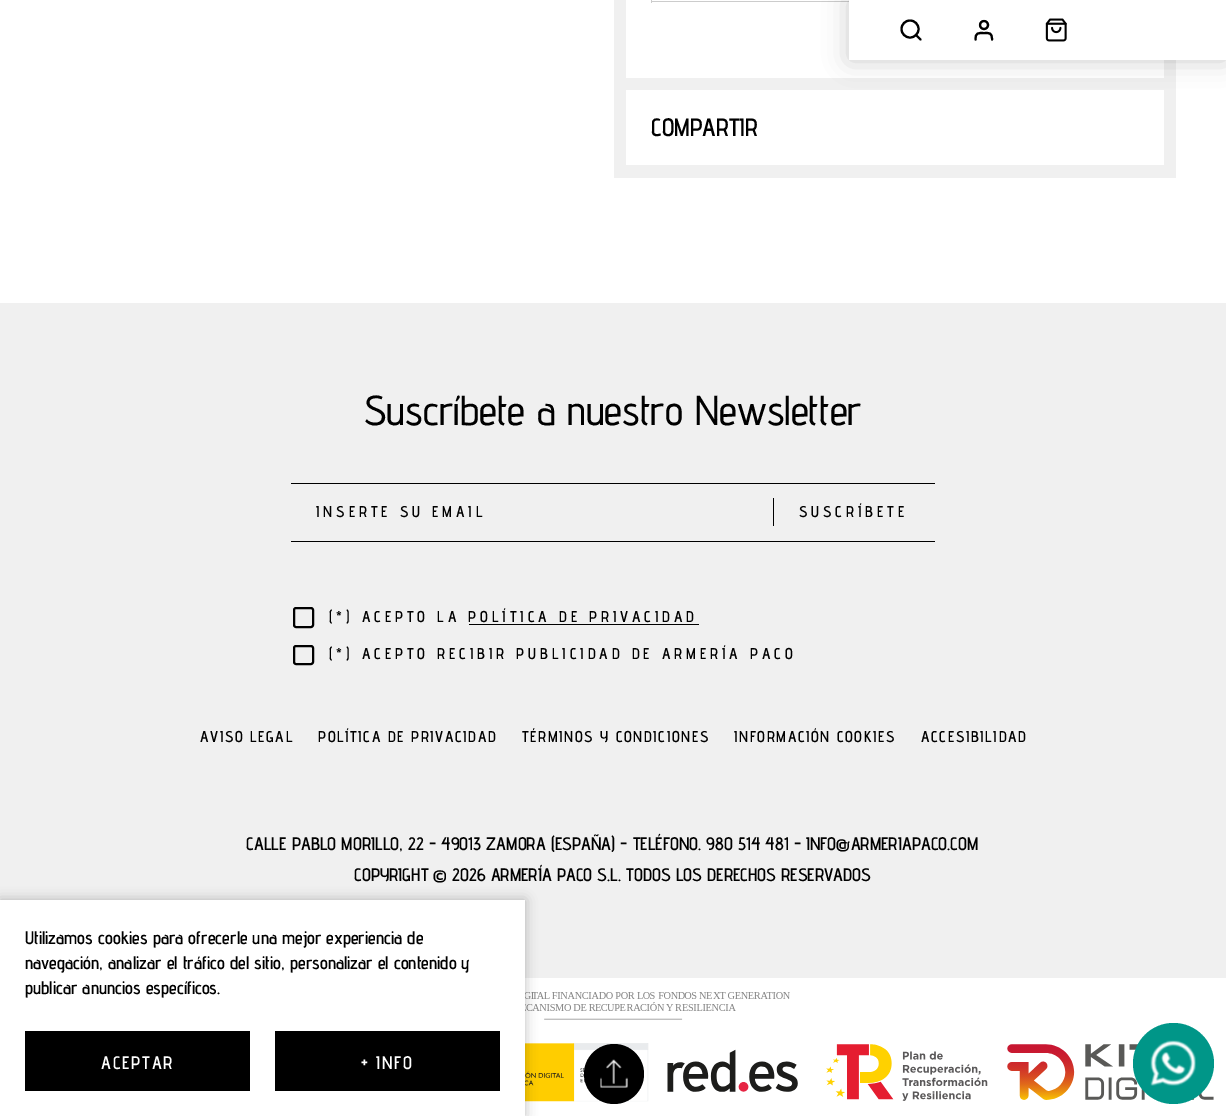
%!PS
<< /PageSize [1226 1116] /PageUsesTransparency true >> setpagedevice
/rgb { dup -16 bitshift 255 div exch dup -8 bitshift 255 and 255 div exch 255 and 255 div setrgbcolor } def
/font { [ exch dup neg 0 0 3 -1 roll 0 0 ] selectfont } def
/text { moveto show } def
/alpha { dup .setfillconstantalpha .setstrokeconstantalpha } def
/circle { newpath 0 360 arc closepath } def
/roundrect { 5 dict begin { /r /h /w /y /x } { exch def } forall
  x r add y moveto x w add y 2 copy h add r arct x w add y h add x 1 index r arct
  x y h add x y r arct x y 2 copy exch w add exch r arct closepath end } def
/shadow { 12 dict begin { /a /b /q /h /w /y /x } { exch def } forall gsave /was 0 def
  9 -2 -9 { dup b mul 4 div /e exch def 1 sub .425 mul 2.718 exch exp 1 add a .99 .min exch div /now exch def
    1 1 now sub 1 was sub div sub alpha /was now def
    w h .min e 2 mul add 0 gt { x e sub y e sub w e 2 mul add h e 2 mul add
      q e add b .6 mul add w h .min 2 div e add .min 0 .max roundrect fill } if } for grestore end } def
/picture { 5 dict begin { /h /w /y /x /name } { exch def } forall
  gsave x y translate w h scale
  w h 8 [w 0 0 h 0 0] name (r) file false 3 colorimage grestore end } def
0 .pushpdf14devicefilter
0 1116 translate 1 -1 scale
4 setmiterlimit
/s1 { /AdventPro-SemiBold 25 font 16#000000 rgb } def
/s2 { /AdventPro-Medium 41.9 font 16#000000 rgb } def
/s3 { /AdventPro-SemiBold 18.1 font 16#000000 rgb } def
16#FFFFFF rgb
0 0 1226 1116 rectfill
16#F0F0F0 rgb
614 0 562 178 rectfill
16#FFFFFF rgb
626 0 538 78 rectfill
16#CCCCCC rgb
651 1 198 1 rectfill
16#FFFFFF rgb
626 90 538 75 rectfill
16#000000 rgb
849 0 377 60 0 12.5 0.2 shadow
16#FFFFFF rgb
849 0 377 60 rectfill
16#000000 rgb
2.1 setlinewidth
910 29 8.5 circle stroke
1 setlinecap
1 setlinejoin
920.5 39.5 moveto 916 35 lineto stroke
992 39.5 moveto 992 32.5 989.5 33 984 33 curveto 978 33 975.5 32.5 975.5 39.5 curveto stroke
0 setlinecap
0 setlinejoin
984 25 4 circle stroke
(pic1.raw) 1045 18 22 24 picture
16#CCCCCC rgb
651 0 1 3 rectfill
s1
(COMPARTIR) 651 136 text
16#F0F0F0 rgb
0 303 1226 675 rectfill
s2
(Suscríbete a nuestro Newsletter) 364 425 text
291 483 644 1 rectfill
/AdventPro-SemiBold 15.6 font
316 517 moveto 3.9 0 (INSERTE SU EMAIL) ashow
291 541 644 1 rectfill
773 498 1 28 rectfill
799 517 moveto 3.9 0 (SUSCRÍBETE) ashow
2 setlinewidth
294 608 19 19 2 roundrect stroke
329 622 moveto 3.9 0 (\(*\) ACEPTO LA POLÍTICA DE PRIVACIDAD) ashow
469 624 230 1 rectfill
294 646 19 18 2 roundrect stroke
329 659 moveto 3.9 0 (\(*\) ACEPTO RECIBIR PUBLICIDAD DE ARMERÍA PACO) ashow
200 742 moveto 1.6 0 (AVISO LEGAL) ashow
318 742 moveto 1.6 0 (POLÍTICA DE PRIVACIDAD) ashow
522 742 moveto 1.6 0 (TÉRMINOS Y CONDICIONES) ashow
734 742 moveto 1.6 0 (INFORMACIÓN COOKIES) ashow
921 742 moveto 1.6 0 (ACCESIBILIDAD) ashow
s3
(CALLE PABLO MORILLO, 22 - 49013 ZAMORA \(ESPAÑA\) - TELÉFONO. 980 514 481 - INFO@ARMERIAPACO.COM) 246 850 text
(COPYRIGHT © 2026 ARMERÍA PACO S.L. TODOS LOS DERECHOS RESERVADOS) 354 881 text
(pic3.raw) 525 992 689 110 picture
614 1074 30 circle fill
(pic2.raw) 600 1059 28 29 picture
0 900 525 216 0 6 0.25 shadow
16#FFFFFF rgb
0 900 525 216 rectfill
s3
(Utilizamos cookies para ofrecerle una mejor experiencia de) 25 944 text
(navegación, analizar el tráfico del sitio, personalizar el contenido y) 25 969 text
(publicar anuncios específicos.) 25 994 text
25 1031 225 60 rectfill
16#FFFFFF rgb
101 1069 moveto 1.75 0 (ACEPTAR) ashow
16#000000 rgb
275 1031 225 60 rectfill
16#FFFFFF rgb
361 1069 moveto 1.75 0 (+ INFO) ashow
16#009688 rgb
1173.5 1063.5 40.5 circle fill
(pic4.raw) 1150 1040 46 46 picture
.poppdf14devicefilter showpage
